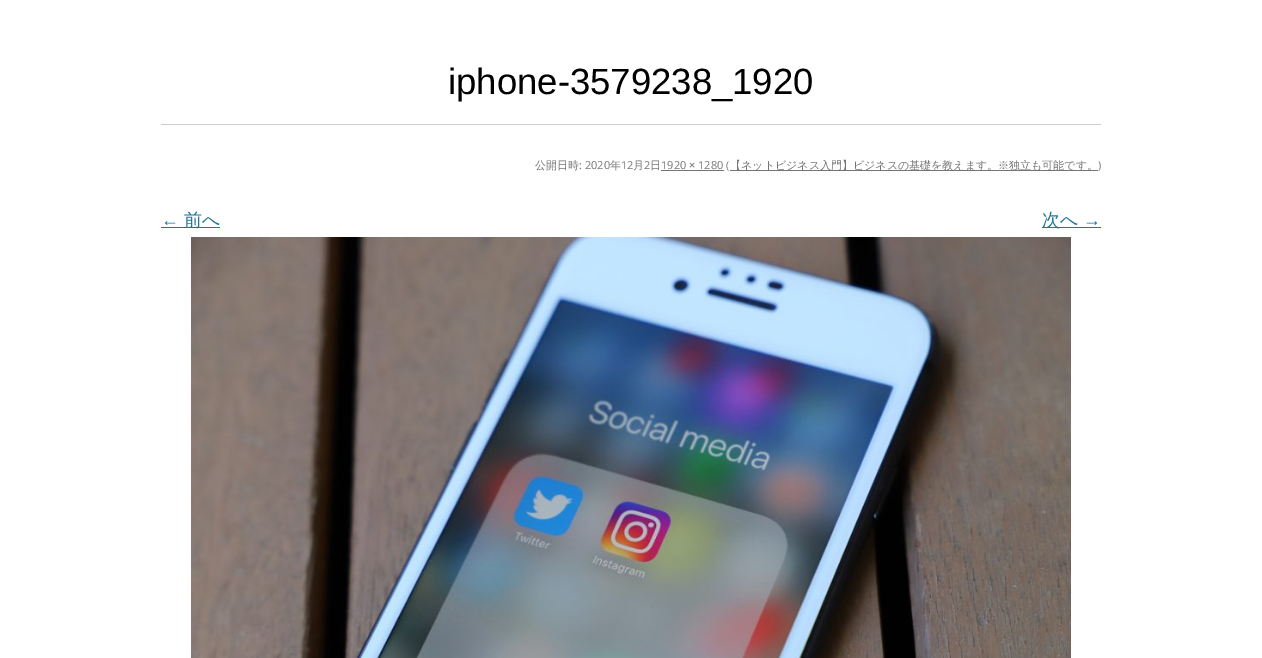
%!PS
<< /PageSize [1262 658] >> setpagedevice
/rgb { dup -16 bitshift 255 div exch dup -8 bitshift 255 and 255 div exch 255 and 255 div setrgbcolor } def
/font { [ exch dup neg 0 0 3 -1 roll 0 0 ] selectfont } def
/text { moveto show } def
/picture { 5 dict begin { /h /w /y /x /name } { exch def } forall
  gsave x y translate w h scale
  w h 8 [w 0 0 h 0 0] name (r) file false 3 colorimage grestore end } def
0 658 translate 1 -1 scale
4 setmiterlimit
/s1 { /LiberationSans-Regular 36.5 font 16#000000 rgb } def
/s2 { /WenQuanYiZenHei-Medium 11 font 16#757575 rgb } def
/s3 { /OpenSans-Regular 11 font 16#757575 rgb } def
/s4 { /LiberationSans-Regular 18 font 16#21759B rgb } def
/s5 { /WenQuanYiZenHei-Medium 18 font 16#21759B rgb } def
16#FFFFFF rgb
0 0 1262 658 rectfill
16#CCCCCC rgb
161 124 940 1 rectfill
s1
(iphone-3579238_1920) 448 94 text
s2
(公開日時) 535 169 text
s3
(: 2020) 579 169 text
s2
(年) 610 169 text
s3
(12) 621 169 text
s2
(月) 633 169 text
s3
(2) 644 169 text
s2
(日) 650 169 text
661 170 63 1 rectfill
s3
(1920 × 1280 \() 661 169 text
730 170 368 1 rectfill
s2
(【ネットビジネス入門】ビジネスの基礎を教えます。※独立も可能です。) 730 169 text
s3
(\)) 1098 169 text
s4
(←) 161 226 text
161 227 59 1 rectfill
s5
(前へ) 184 226 text
1042 227 59 1 rectfill
(次へ) 1042 226 text
s4
(→) 1083 226 text
(pic1.raw) 191 237 880 421 picture
showpage
